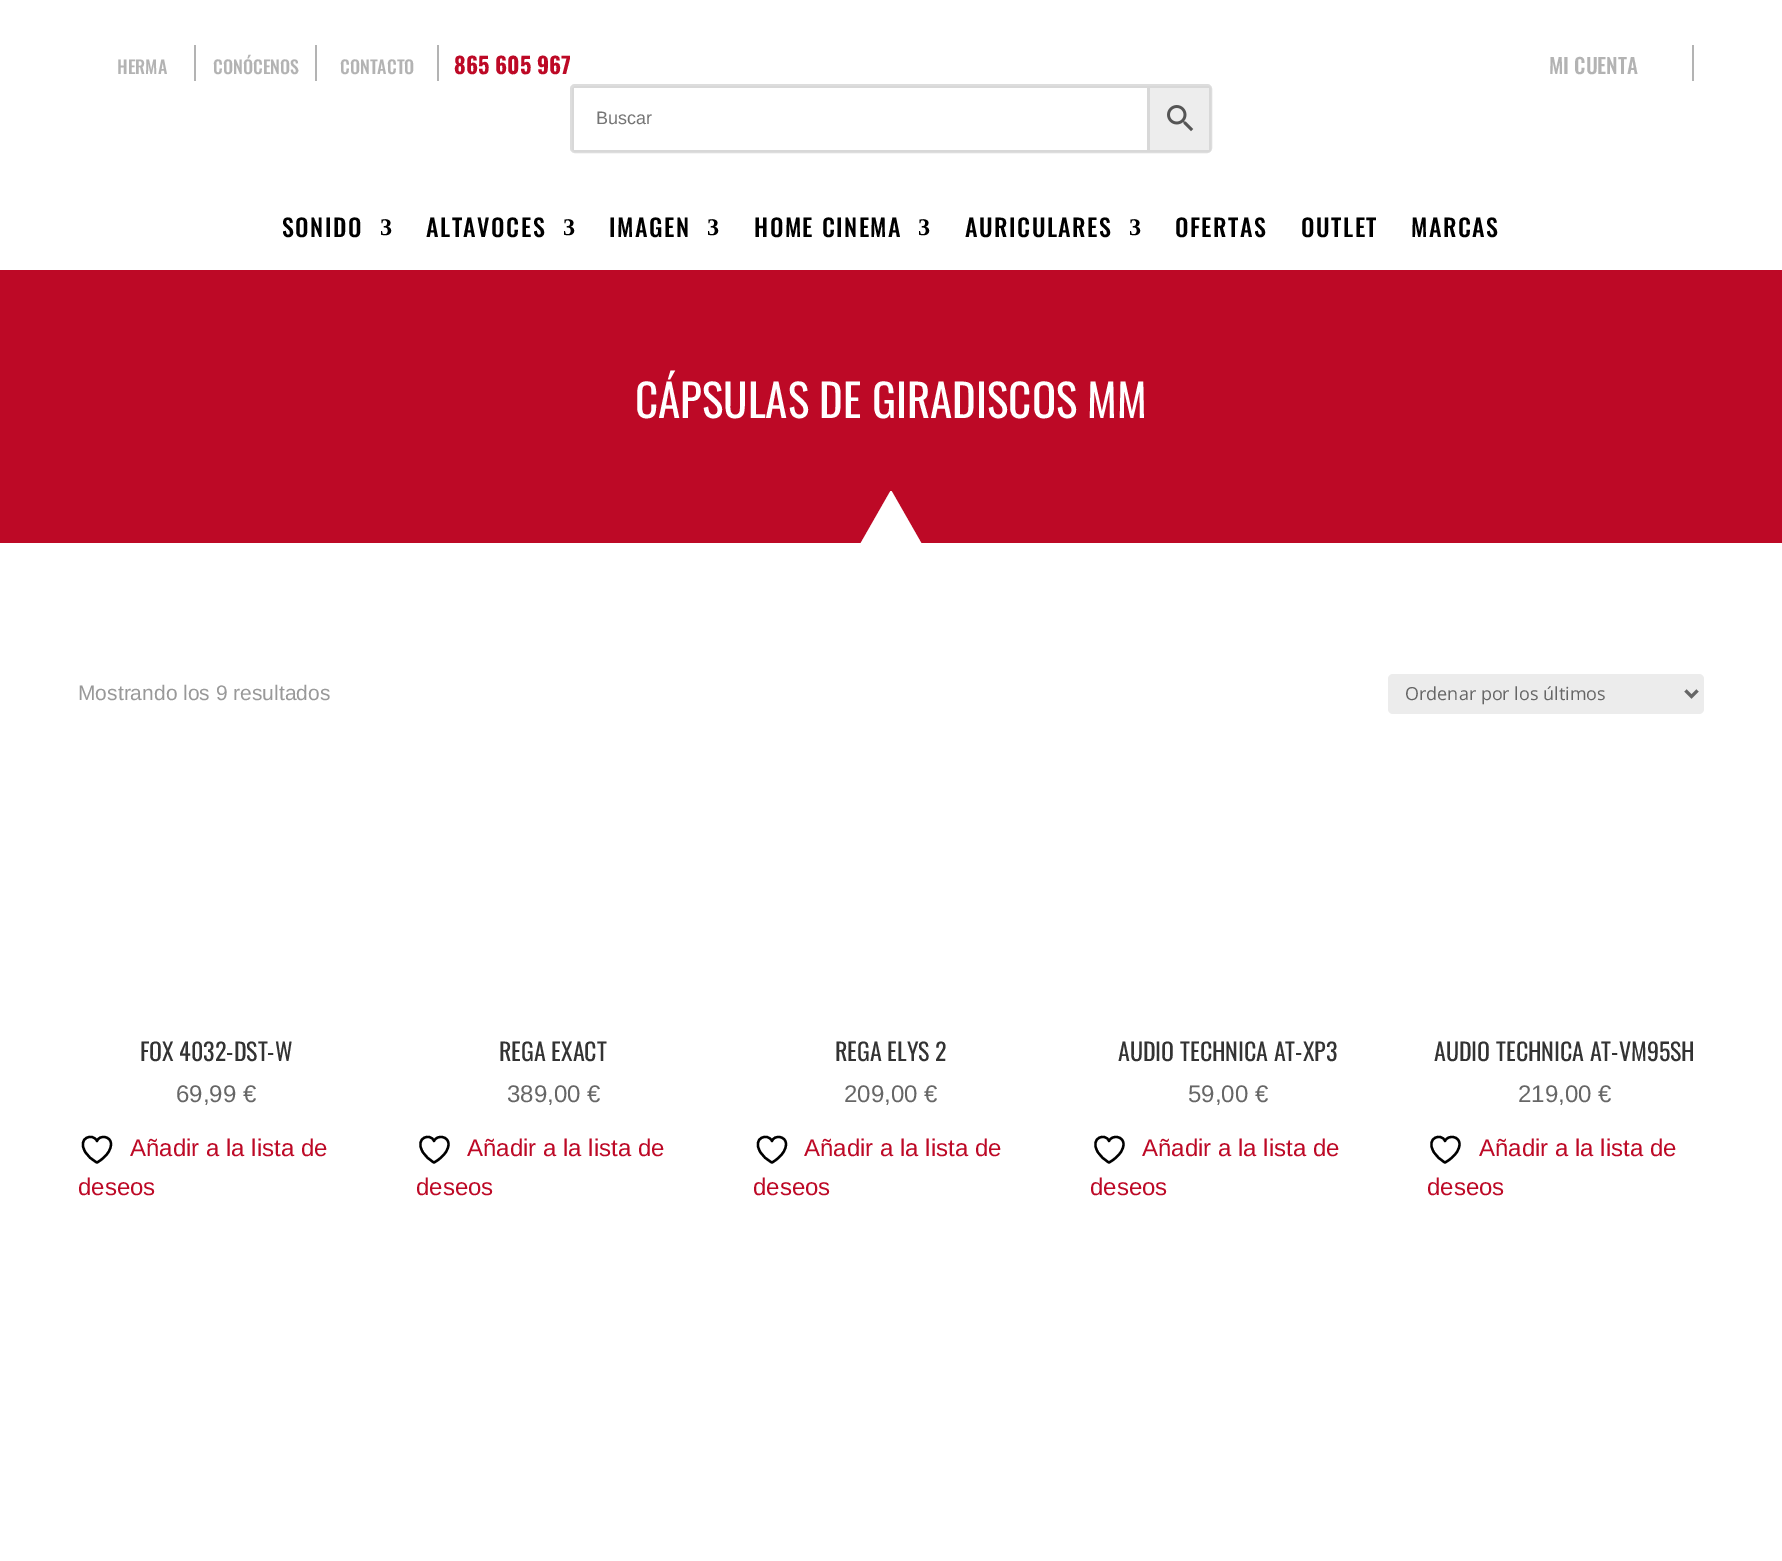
%!PS
<< /PageSize [1782 1561] >> setpagedevice
/rgb { dup -16 bitshift 255 div exch dup -8 bitshift 255 and 255 div exch 255 and 255 div setrgbcolor } def
/font { [ exch dup neg 0 0 3 -1 roll 0 0 ] selectfont } def
/text { moveto show } def
/roundrect { 5 dict begin { /r /h /w /y /x } { exch def } forall
  x r add y moveto x w add y 2 copy h add r arct x w add y h add x 1 index r arct
  x y h add x y r arct x y 2 copy exch w add exch r arct closepath end } def
/picture { 5 dict begin { /h /w /y /x /name } { exch def } forall
  gsave x y translate w h scale
  w h 8 [w 0 0 h 0 0] name (r) file false 3 colorimage grestore end } def
0 1561 translate 1 -1 scale
4 setmiterlimit
/s1 { /Oswald-Medium 18 font 16#B3B3B3 rgb } def
/s2 { /Oswald-Bold 22.5 font 16#BD0926 rgb } def
/s3 { /Oswald-Medium 21 font 16#B3B3B3 rgb } def
/s4 { /LiberationSans-Regular 18 font 16#757575 rgb } def
/s5 { /Oswald-Regular 45 font 16#FFFFFF rgb } def
/s6 { /LiberationSans-Regular 21 font 16#999999 rgb } def
/s7 { /OpenSans-Regular 18 font 16#666666 rgb } def
/s8 { /Oswald-Regular 24 font 16#333333 rgb } def
/s9 { /LiberationSans-Regular 24 font 16#666666 rgb } def
/s10 { /LiberationSans-Regular 24 font 16#BD0926 rgb } def
16#FFFFFF rgb
0 0 1782 1561 rectfill
s1
(HERMA) 117 74 text
194 45 2 36 rectfill
(CONÓCENOS) 213 74 text
315 45 2 36 rectfill
(CONTACTO) 340 74 text
437 45 2 36 rectfill
s2
(865 605 967) 454 74 text
s3
(MI CUENTA) 1549 74 text
1692 45 2 36 rectfill
16#DDDDDD rgb
2 setlinewidth
571 85 640 67 4 roundrect stroke
16#EDEDED rgb
1148 86 moveto 1208 86 lineto 1209.5 86 1211 87.5 1211 89 curveto 1211 149 lineto 1211 150.5 1209.5 152 1208 152 curveto 1148 152 lineto closepath fill
16#D8D8D8 rgb
1148 86 moveto 1148 152 lineto 1208 152 lineto 1210 152 1211 151 1211 149 curveto 1211 89 lineto 1211 87 1210 86 1208 86 curveto closepath 1150 88 moveto 1150 150 lineto 1209 150 lineto 1209 88 lineto closepath eofill
16#FFFFFF rgb
575 86 moveto 1149 86 lineto 1149 152 lineto 575 152 lineto 573.5 152 572 150.5 572 149 curveto 572 89 lineto 572 87.5 573.5 86 575 86 curveto closepath fill
16#D8D8D8 rgb
575 86 moveto 573 86 572 87 572 89 curveto 572 149 lineto 572 151 573 152 575 152 curveto 1149 152 lineto 1149 86 lineto closepath 574 88 moveto 574 150 lineto 1147 150 lineto 1147 88 lineto closepath eofill
s4
(Buscar) 596 124 text
(pic1.raw) 1167 105 27 27 picture
/Oswald-Medium 24 font
16#000000 rgb
282 237 moveto 1.5 0 (SONIDO) ashow
/LiberationSerif-Bold 24 font
380 235 moveto 1.5 0 (3) ashow
/Oswald-Medium 24 font
426 237 moveto 1.5 0 (ALTAVOCES) ashow
/LiberationSerif-Bold 24 font
563 235 moveto 1.5 0 (3) ashow
/Oswald-Medium 24 font
609 237 moveto 1.5 0 (IMAGEN) ashow
/LiberationSerif-Bold 24 font
707 235 moveto 1.5 0 (3) ashow
/Oswald-Medium 24 font
754 237 moveto 1.5 0 (HOME CINEMA) ashow
/LiberationSerif-Bold 24 font
918 235 moveto 1.5 0 (3) ashow
/Oswald-Medium 24 font
965 237 moveto 1.5 0 (AURICULARES) ashow
/LiberationSerif-Bold 24 font
1129 235 moveto 1.5 0 (3) ashow
/Oswald-Medium 24 font
1175 237 moveto 1.5 0 (OFERTAS) ashow
1301 237 moveto 1.5 0 (OUTLET) ashow
1411 237 moveto 1.5 0 (MARCAS) ashow
16#BD0926 rgb
0 270 1782 273 rectfill
s5
(CÁPSULAS DE GIRADISCOS MM) 635 418 text
gsave
0 491 1782 52 rectclip
891 490 moveto 0 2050 lineto 1782 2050 lineto closepath fill
grestore
s6
(Mostrando los 9 resultados) 78 700 text
16#ECECEC rgb
1388 674 316 40 5 roundrect fill
16#666666 rgb
3 setlinewidth
1685.5 690.5 moveto 1691.5 696.5 lineto 1697.5 690.5 lineto stroke
s7
(Ordenar por los últimos) 1405 700 text
s8
(FOX 4032-DST-W) 140 1061 text
s9
(69,99 €) 176 1102 text
16#000000 rgb
2.3 setlinewidth
1 setlinecap
1 setlinejoin
111 1144 moveto 111 1136 99.5 1134.5 97 1141 curveto 93 1132.5 77 1137.5 85 1151.5 curveto 87.5 1156 92 1160 97 1162.5 curveto 97 1162.5 111 1155 111 1144 curveto closepath stroke
s10
(Añadir a la lista de) 130 1156 text
(deseos) 78 1195 text
s8
(REGA EXACT) 499 1061 text
s9
(389,00 €) 507 1102 text
16#000000 rgb
448.5 1144 moveto 448.5 1136 437 1134.5 434 1141 curveto 430.5 1132.5 414.5 1137.5 422.5 1151.5 curveto 425 1156 429.5 1160 434 1162.5 curveto 434 1162.5 448.5 1155 448.5 1144 curveto closepath stroke
s10
(Añadir a la lista de) 467 1156 text
(deseos) 416 1195 text
s8
(REGA ELYS 2) 835 1061 text
s9
(209,00 €) 844 1102 text
16#000000 rgb
786 1144 moveto 786 1136 774.5 1134.5 772 1141 curveto 768 1132.5 752 1137.5 760 1151.5 curveto 762.5 1156 767 1160 772 1162.5 curveto 772 1162.5 786 1155 786 1144 curveto closepath stroke
s10
(Añadir a la lista de) 804 1156 text
(deseos) 753 1195 text
s8
(AUDIO TECHNICA AT-XP3) 1118 1061 text
s9
(59,00 €) 1188 1102 text
16#000000 rgb
1123.5 1144 moveto 1123.5 1136 1112 1134.5 1109 1141 curveto 1105.5 1132.5 1089.5 1137.5 1097.5 1151.5 curveto 1100 1156 1104.5 1160 1109 1162.5 curveto 1109 1162.5 1123.5 1155 1123.5 1144 curveto closepath stroke
s10
(Añadir a la lista de) 1142 1156 text
(deseos) 1090 1195 text
s8
(AUDIO TECHNICA AT-VM95SH) 1434 1061 text
s9
(219,00 €) 1518 1102 text
16#000000 rgb
1459.5 1144 moveto 1459.5 1136 1448 1134.5 1445 1141 curveto 1441.5 1132.5 1425.5 1137.5 1433.5 1151.5 curveto 1436 1156 1440.5 1160 1445 1162.5 curveto 1445 1162.5 1459.5 1155 1459.5 1144 curveto closepath stroke
s10
(Añadir a la lista de) 1479 1156 text
(deseos) 1427 1195 text
showpage
